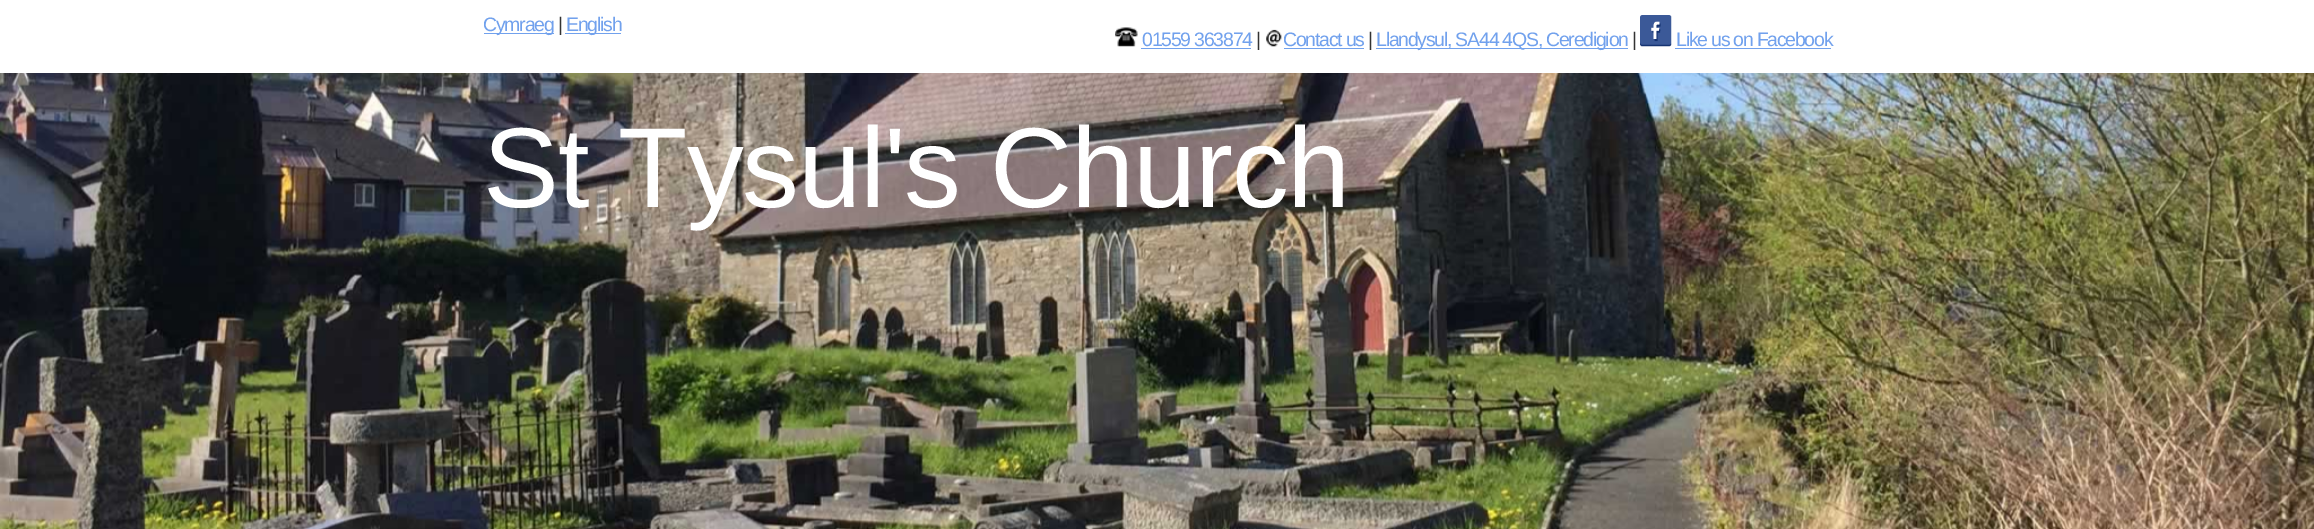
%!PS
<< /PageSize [2314 529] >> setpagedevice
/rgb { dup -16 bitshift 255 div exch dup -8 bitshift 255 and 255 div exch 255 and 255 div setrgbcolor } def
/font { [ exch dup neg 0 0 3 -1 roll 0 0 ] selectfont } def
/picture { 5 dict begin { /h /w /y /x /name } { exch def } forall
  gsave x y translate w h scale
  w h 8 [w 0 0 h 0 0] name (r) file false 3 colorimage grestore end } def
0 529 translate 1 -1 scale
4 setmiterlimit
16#FFFFFF rgb
0 0 2314 529 rectfill
(pic1.raw) 0 73 2314 456 picture
16#71A1ED rgb
484 33 70 1 rectfill
/LiberationSans-Regular 19.5 font
483 31 moveto -1.25 0 (Cymraeg) ashow
16#333333 rgb
558 31 moveto -1.25 0 (|) ashow
16#71A1ED rgb
565 33 56 1 rectfill
566 31 moveto -1.25 0 (English) ashow
(pic2.raw) 1115 27 23 20 picture
1142 46 moveto -1.25 0 (01559 363874) ashow
1141 48 110 1 rectfill
16#333333 rgb
1256 46 moveto -1.25 0 (|) ashow
(pic3.raw) 1266 29 16 18 picture
16#71A1ED rgb
1283 46 moveto -1.25 0 (Contact us) ashow
1284 48 80 1 rectfill
16#333333 rgb
1368 46 moveto -1.25 0 (|) ashow
16#71A1ED rgb
1376 48 252 1 rectfill
1376 46 moveto -1.25 0 (Llandysul, SA44 4QS, Ceredigion) ashow
16#333333 rgb
1632 46 moveto -1.25 0 (|) ashow
(pic4.raw) 1640 15 32 32 picture
16#71A1ED rgb
1676 46 moveto -1.25 0 (Like us on Facebook) ashow
1675 48 156 1 rectfill
/LiberationSans-Regular 113.75 font
16#FFFFFF rgb
483 207 moveto -1.25 0 (St Tysul's Church) ashow
showpage
